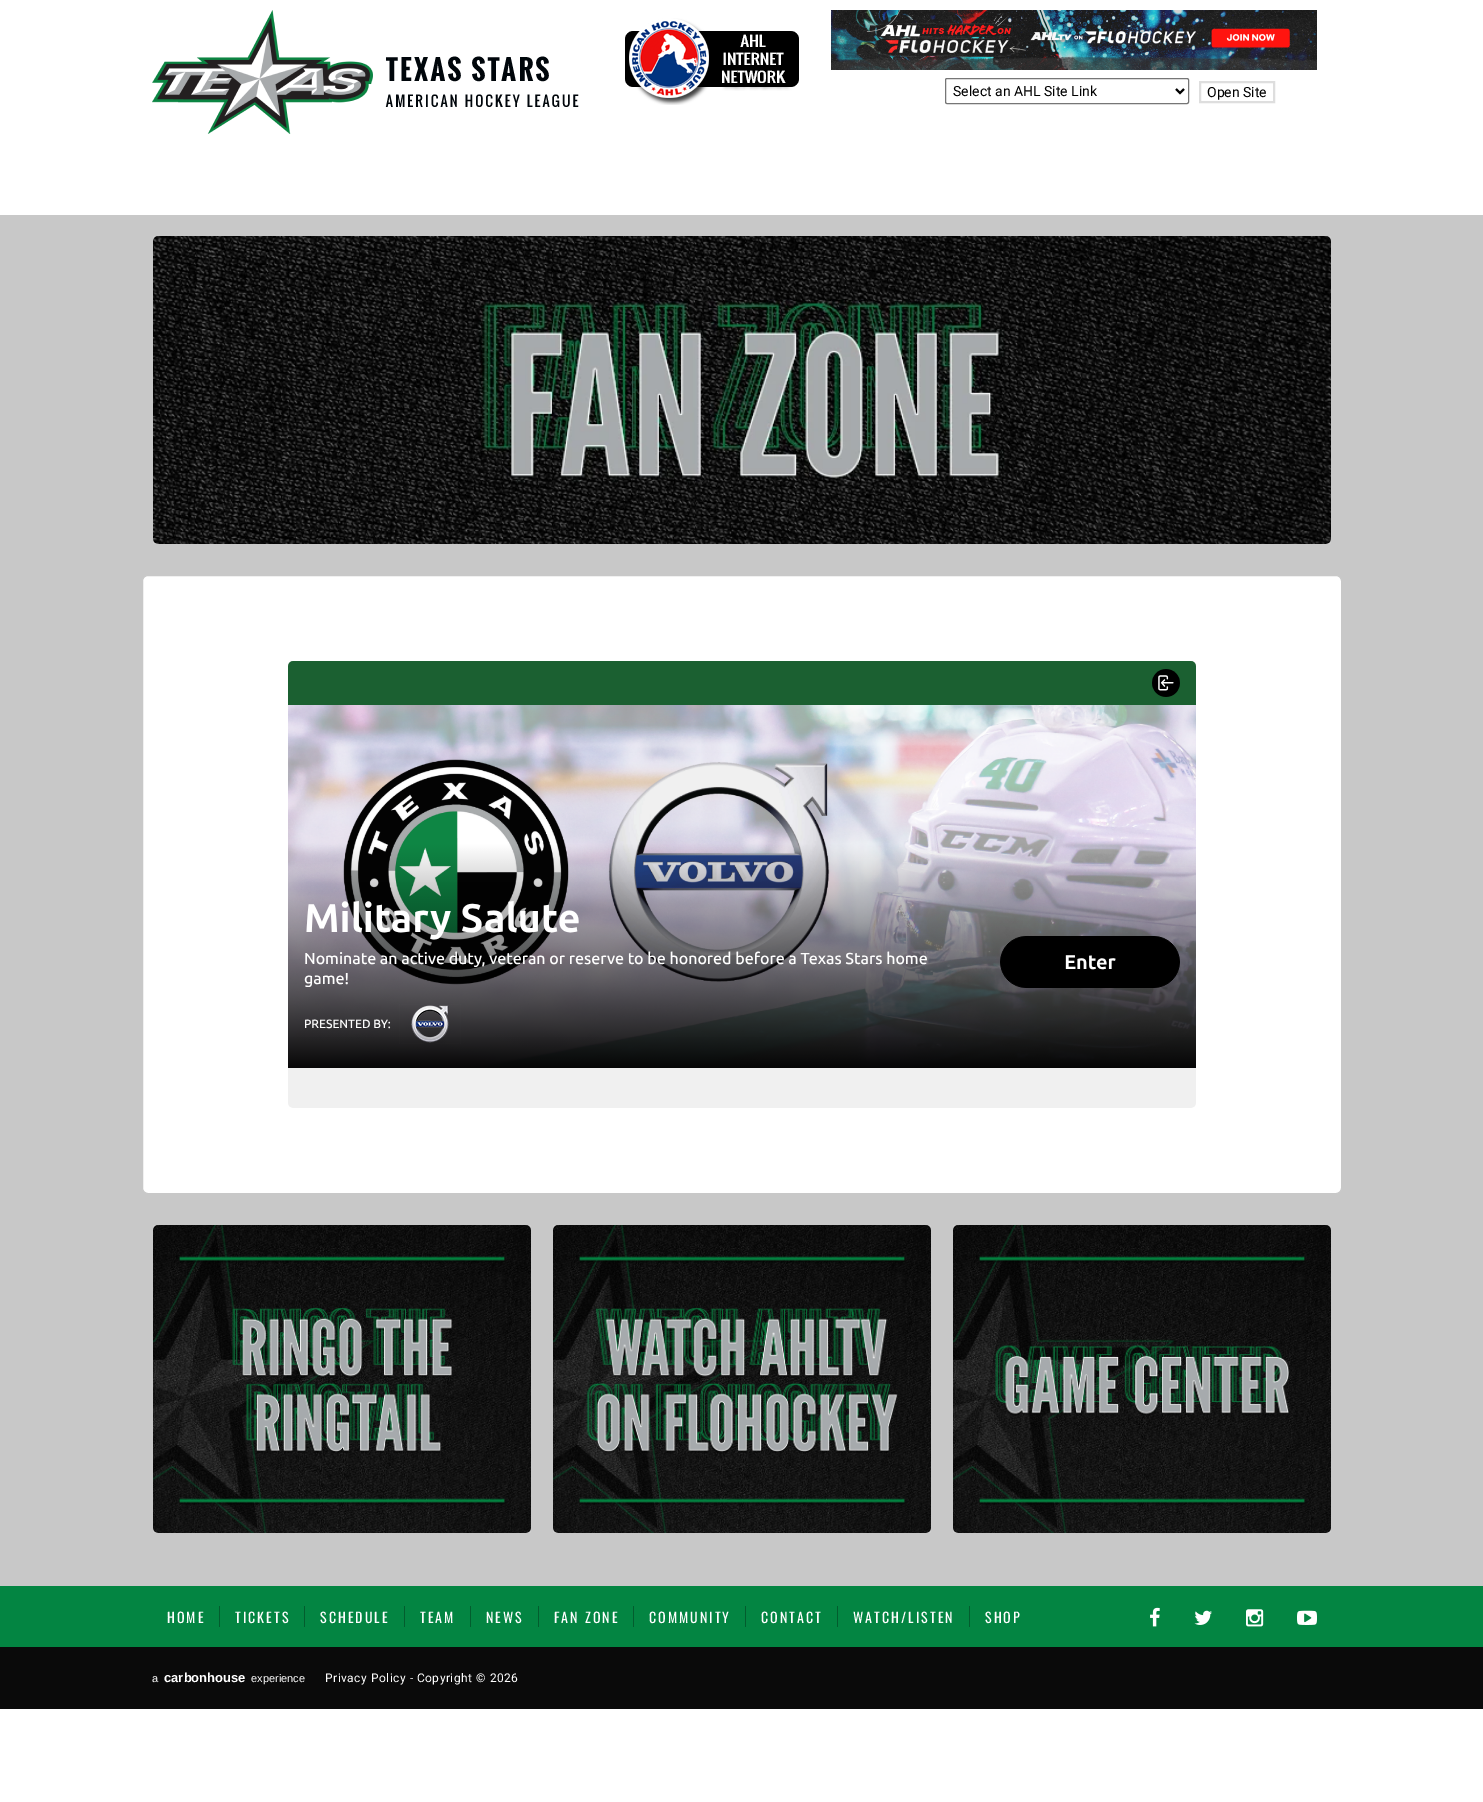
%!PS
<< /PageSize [1483 1802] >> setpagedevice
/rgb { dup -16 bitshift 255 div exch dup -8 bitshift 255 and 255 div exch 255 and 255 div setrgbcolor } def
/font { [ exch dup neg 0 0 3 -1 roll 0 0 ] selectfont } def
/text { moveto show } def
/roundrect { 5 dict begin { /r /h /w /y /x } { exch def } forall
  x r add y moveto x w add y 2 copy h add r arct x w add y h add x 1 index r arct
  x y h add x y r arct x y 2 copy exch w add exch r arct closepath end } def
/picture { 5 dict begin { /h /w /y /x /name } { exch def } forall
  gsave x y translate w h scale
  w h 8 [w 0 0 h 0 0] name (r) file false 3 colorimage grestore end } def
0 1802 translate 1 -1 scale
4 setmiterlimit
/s1 { /Roboto-Regular 14 font 16#000000 rgb } def
/s2 { /LiberationSans-Regular 11 font 16#FFFFFF rgb } def
/s3 { /LiberationSans-Bold 13 font 16#FFFFFF rgb } def
16#FFFFFF rgb
0 0 1483 1802 rectfill
16#C8C8C8 rgb
0 215 1483 1371 rectfill
(pic1.raw) 152 10 427 124 picture
(pic2.raw) 625 18 174 87 picture
(pic3.raw) 831 10 486 60 picture
16#767676 rgb
945.5 78.5 243 25 1.5 roundrect stroke
16#000000 rgb
2 setlinewidth
1176 89 moveto 1180 93 lineto 1184 89 lineto stroke
s1
(Select an AHL Site Link) 953 96 text
16#DEDEDE rgb
1200 82 74 20 rectstroke
s1
(Open Site) 1207 97 text
(pic4.raw) 153 236 1178 308 picture
16#FFFFFF rgb
142.5 575.5 1199 618 5.5 roundrect gsave fill grestore
16#C8C8C8 rgb
1 setlinewidth
stroke
(pic5.raw) 288 661 908 447 picture
(pic6.raw) 153 1225 378 308 picture
(pic7.raw) 553 1225 378 308 picture
(pic8.raw) 953 1225 378 308 picture
16#038542 rgb
0 1586 1483 61 rectfill
/Oswald-Regular 14 font
16#FFFFFF rgb
167 1623 moveto 2 0 (HOME) ashow
16#025D2E rgb
219 1606 1 21 rectfill
16#FFFFFF rgb
235 1623 moveto 2 0 (TICKETS) ashow
16#025D2E rgb
304 1606 1 21 rectfill
16#FFFFFF rgb
320 1623 moveto 2 0 (SCHEDULE) ashow
16#025D2E rgb
404 1606 1 21 rectfill
16#FFFFFF rgb
420 1623 moveto 2 0 (TEAM) ashow
16#025D2E rgb
470 1606 1 21 rectfill
16#FFFFFF rgb
486 1623 moveto 2 0 (NEWS) ashow
16#025D2E rgb
538 1606 1 21 rectfill
16#FFFFFF rgb
554 1623 moveto 2 0 (FAN ZONE) ashow
16#025D2E rgb
633 1606 1 21 rectfill
16#FFFFFF rgb
649 1623 moveto 2 0 (COMMUNITY) ashow
16#025D2E rgb
745 1606 1 21 rectfill
16#FFFFFF rgb
761 1623 moveto 2 0 (CONTACT) ashow
16#025D2E rgb
837 1606 1 21 rectfill
16#FFFFFF rgb
853 1623 moveto 2 0 (WATCH/LISTEN) ashow
16#025D2E rgb
969 1606 1 21 rectfill
16#FFFFFF rgb
985 1623 moveto 2 0 (SHOP) ashow
(pic9.raw) 1150 1607 10 20 picture
(pic10.raw) 1194 1610 18 15 picture
(pic11.raw) 1246 1609 18 18 picture
(pic12.raw) 1297 1610 20 15 picture
16#0A0A0A rgb
0 1647 1483 62 rectfill
s2
(a) 152 1682 text
s3
(carbonhouse) 164 1682 text
s2
(experience) 251 1682 text
/Roboto-Regular 12 font
325 1682 moveto 0.5 0 (Privacy Policy - Copyright © 2026) ashow
showpage
